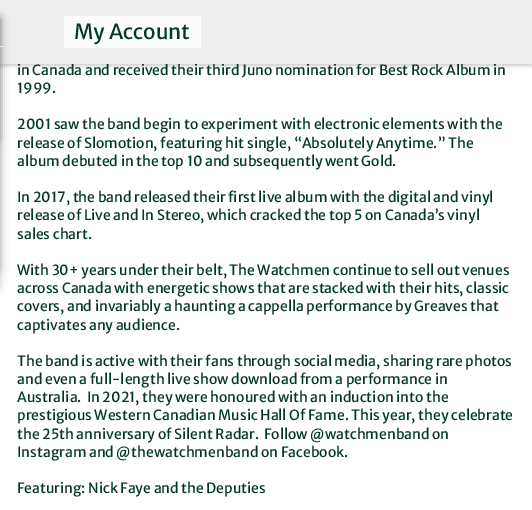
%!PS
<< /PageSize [532 510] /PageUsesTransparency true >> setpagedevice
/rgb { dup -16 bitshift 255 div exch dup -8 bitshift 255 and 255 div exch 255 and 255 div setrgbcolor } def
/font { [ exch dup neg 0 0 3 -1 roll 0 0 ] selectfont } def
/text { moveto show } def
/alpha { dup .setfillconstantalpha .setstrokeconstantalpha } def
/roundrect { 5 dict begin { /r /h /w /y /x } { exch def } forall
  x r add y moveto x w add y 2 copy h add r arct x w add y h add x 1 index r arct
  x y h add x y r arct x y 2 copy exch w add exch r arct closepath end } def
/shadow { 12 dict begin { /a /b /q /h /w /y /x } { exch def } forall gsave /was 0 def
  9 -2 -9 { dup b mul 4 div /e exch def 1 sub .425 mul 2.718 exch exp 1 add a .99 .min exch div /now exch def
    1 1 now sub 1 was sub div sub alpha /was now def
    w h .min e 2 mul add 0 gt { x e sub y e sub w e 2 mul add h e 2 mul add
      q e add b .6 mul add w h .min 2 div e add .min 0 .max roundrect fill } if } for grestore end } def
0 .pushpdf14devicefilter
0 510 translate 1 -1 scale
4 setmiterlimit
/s1 { /MerriweatherSans-Regular 14 font 16#02382C rgb } def
/s2 { /MerriweatherSans-Regular 20.75 font 16#02382C rgb } def
16#FFFFFF rgb
0 0 532 510 rectfill
16#000000 rgb
0 2 532 64 0 2 0.2 shadow
s1
(in Canada and received their third Juno nomination for Best Rock Album in) 17 75 text
16#EEEEEE rgb
0 0 532 64 rectfill
16#FCFCFC rgb
64 16 137 32 2 roundrect fill
s2
(My Account) 74 39 text
16#000000 rgb
-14 18 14 253 2 4 0.2 shadow
-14 18 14 122 2 4 0.2 shadow
-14 18 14 270 2 4 0.2 shadow
16#EEEEEE rgb
0 46 4 1 rectfill
s1
(1999.) 17 93 text
(2001 saw the band begin to experiment with electronic elements with the) 17 129 text
(release of Slomotion, featuring hit single, “Absolutely Anytime.” The) 17 148 text
(album debuted in the top 10 and subsequently went Gold.) 17 166 text
(In 2017, the band released their first live album with the digital and vinyl) 17 202 text
(release of Live and In Stereo, which cracked the top 5 on Canada’s vinyl) 17 220 text
(sales chart.) 17 239 text
(With 30+ years under their belt, The Watchmen continue to sell out venues) 17 275 text
(across Canada with energetic shows that are stacked with their hits, classic) 17 293 text
(covers, and invariably a haunting a cappella performance by Greaves that) 17 311 text
(captivates any audience.) 17 330 text
(The band is active with their fans through social media, sharing rare photos) 17 366 text
(and even a full-length live show download from a performance in) 17 384 text
(Australia.  In 2021, they were honoured with an induction into the) 17 402 text
(prestigious Western Canadian Music Hall Of Fame. This year, they celebrate) 17 420 text
(the 25th anniversary of Silent Radar.  Follow @watchmenband on) 17 439 text
(Instagram and @thewatchmenband on Facebook.) 17 457 text
(Featuring: Nick Faye and the Deputies) 17 493 text
.poppdf14devicefilter showpage
